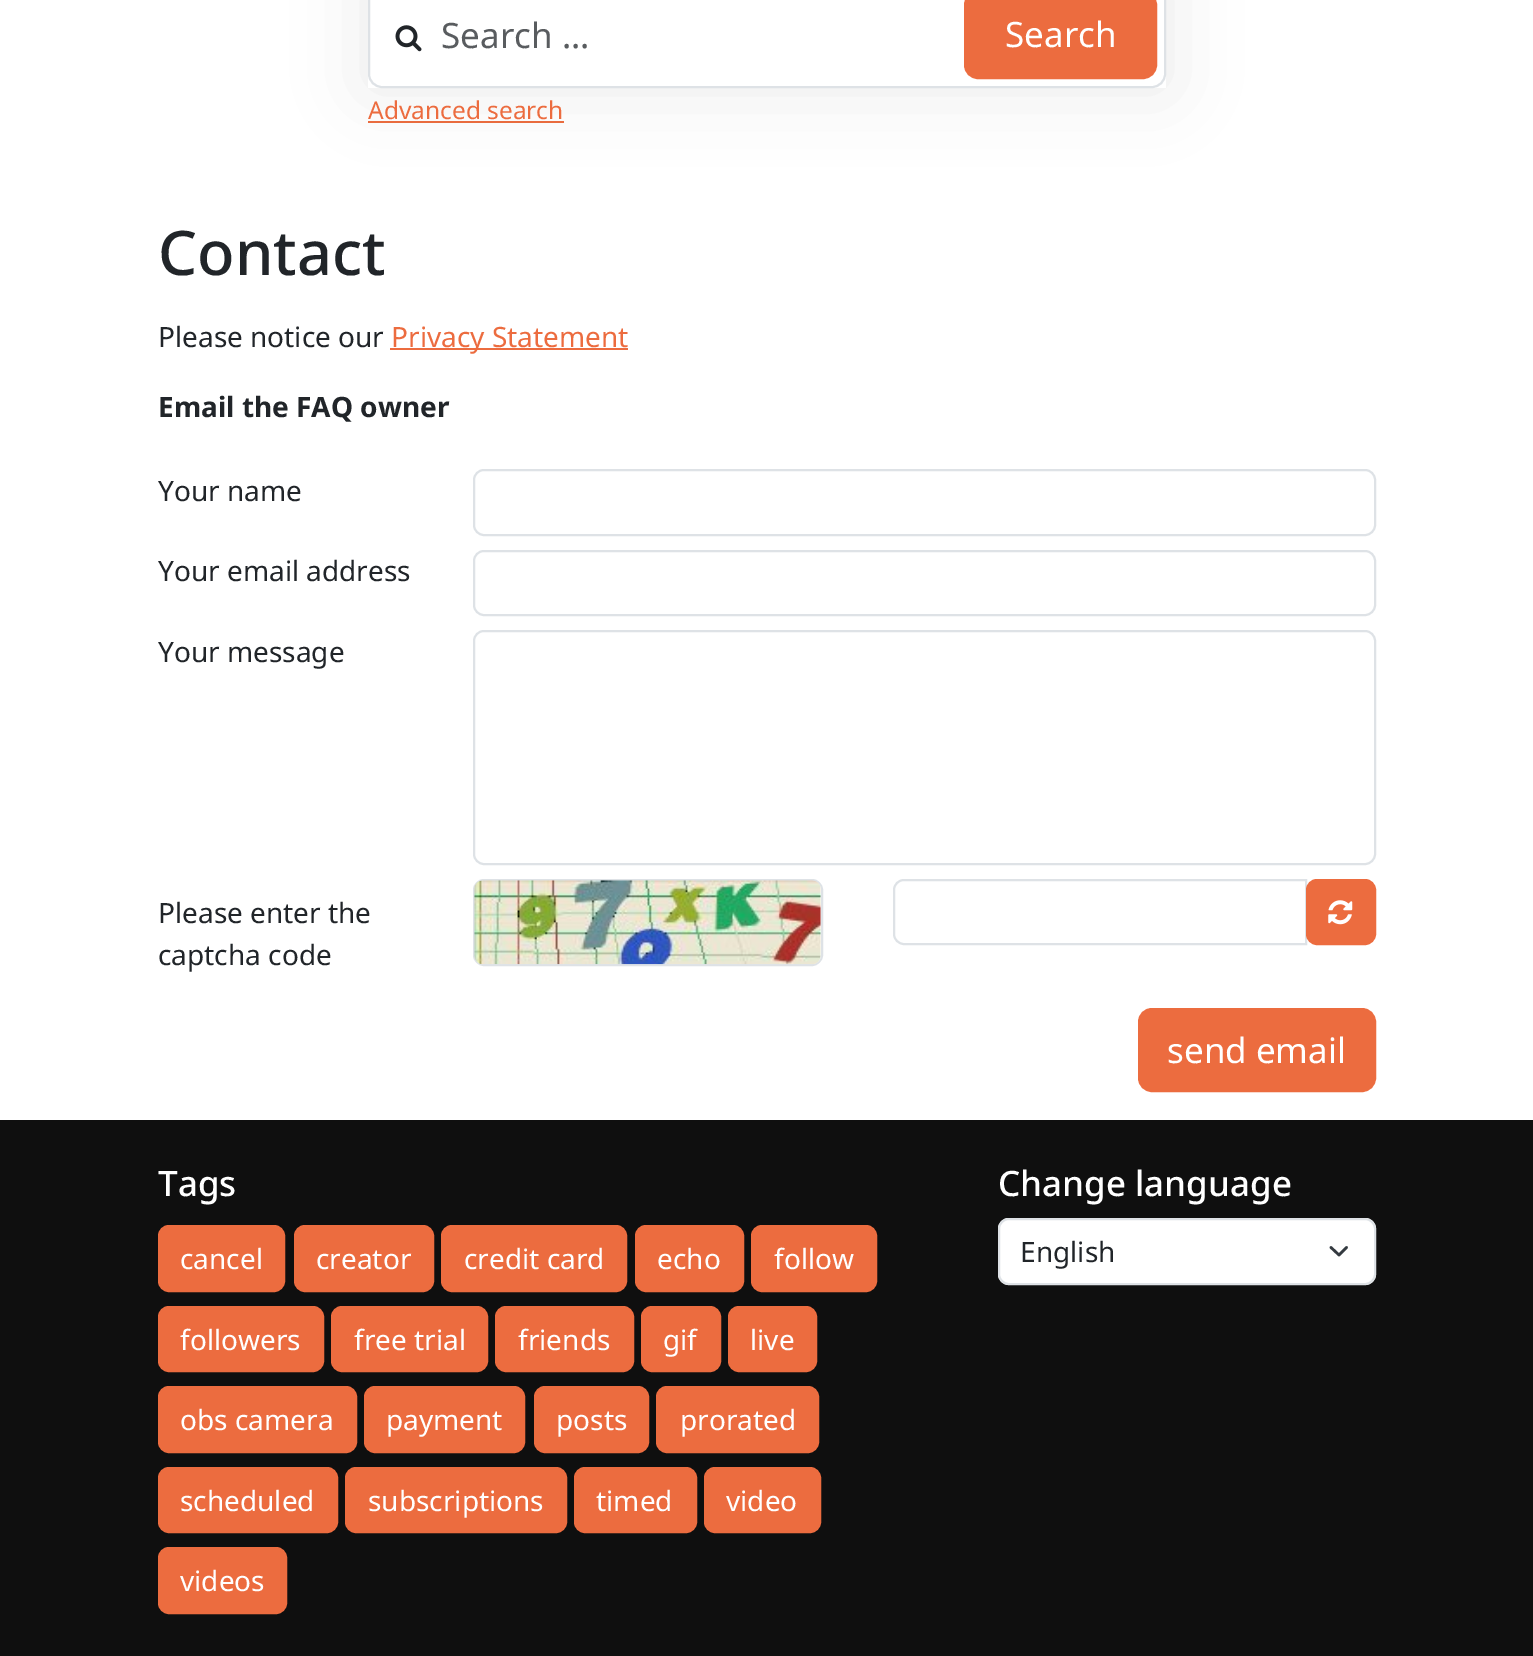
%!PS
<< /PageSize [1533 1656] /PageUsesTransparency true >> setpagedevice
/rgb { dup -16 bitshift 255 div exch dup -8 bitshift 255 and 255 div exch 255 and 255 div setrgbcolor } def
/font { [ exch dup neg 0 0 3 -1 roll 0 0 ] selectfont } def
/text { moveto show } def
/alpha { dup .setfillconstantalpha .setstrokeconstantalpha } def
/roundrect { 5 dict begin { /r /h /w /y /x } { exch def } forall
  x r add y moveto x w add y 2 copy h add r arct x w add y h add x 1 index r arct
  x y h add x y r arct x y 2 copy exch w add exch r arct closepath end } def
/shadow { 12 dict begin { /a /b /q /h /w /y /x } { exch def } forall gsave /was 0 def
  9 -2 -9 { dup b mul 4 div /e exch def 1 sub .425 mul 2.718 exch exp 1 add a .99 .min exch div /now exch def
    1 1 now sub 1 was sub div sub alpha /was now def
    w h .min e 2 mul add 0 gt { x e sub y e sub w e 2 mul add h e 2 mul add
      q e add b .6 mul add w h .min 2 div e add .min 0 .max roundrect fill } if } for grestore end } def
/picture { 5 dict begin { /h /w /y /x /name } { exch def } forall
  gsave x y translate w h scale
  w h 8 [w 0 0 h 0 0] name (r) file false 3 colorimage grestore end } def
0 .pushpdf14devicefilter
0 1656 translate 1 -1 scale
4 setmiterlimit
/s1 { /NotoSans-Regular 35 font 16#595C5F rgb } def
/s2 { /NotoSans-Regular 35 font 16#FFFFFF rgb } def
/s3 { /NotoSans-Regular 24.5 font 16#EC6C3F rgb } def
/s4 { /NotoSans-Medium 61.5 font 16#212529 rgb } def
/s5 { /NotoSans-Regular 28 font 16#212529 rgb } def
/s6 { /NotoSans-Regular 28 font 16#EC6C3F rgb } def
/s7 { /NotoSans-Bold 28 font 16#212529 rgb } def
/s8 { /NotoSans-Medium 35 font 16#FFFFFF rgb } def
/s9 { /NotoSans-Regular 28 font 16#FFFFFF rgb } def
16#FFFFFF rgb
0 0 1533 1656 rectfill
16#EC6C3F rgb
368 121 196 2 rectfill
gsave
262 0 moveto 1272 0 lineto 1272 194 lineto 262 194 lineto closepath 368 -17 moveto 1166 -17 lineto 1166 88 lineto 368 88 lineto closepath eoclip newpath
16#333333 rgb
368 -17 798 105 0 35 0.1 shadow
grestore
16#DEE2E6 rgb
2 setlinewidth
369 -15 796 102 13 roundrect stroke
(pic1.raw) 395 25 27 27 picture
s1
(Search ...) 441 48 text
16#EC6C3F rgb
965 -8 191 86 13 roundrect gsave fill grestore
stroke
s2
(Search) 1005 47 text
s3
(Advanced search) 368 119 text
s4
(Contact) 158 275 text
s5
(Please notice our) 158 347 text
16#EC6C3F rgb
390 348 238 2 rectfill
(Privacy Statement) 391 347 text
s7
(Email the FAQ owner) 158 417 text
s5
(Your name) 158 501 text
16#DEE2E6 rgb
474 470 901 65 10 roundrect stroke
s5
(Your email address) 158 581 text
16#DEE2E6 rgb
474 551 901 64 10 roundrect stroke
s5
(Your message) 158 662 text
16#DEE2E6 rgb
474 631 901 233 10 roundrect stroke
s5
(Please enter the) 158 923 text
(captcha code) 158 965 text
16#DEE2E6 rgb
474 880 348 85 10 roundrect stroke
(pic2.raw) 474 880 347 85 picture
904 880 moveto 1306 880 lineto 1306 944 lineto 904 944 lineto 898.5 944 894 939.5 894 934 curveto 894 890 lineto 894 884.5 898.5 880 904 880 curveto closepath stroke
16#EC6C3F rgb
1307 880 68 64 10 roundrect gsave fill grestore
stroke
(pic3.raw) 1328 900 25 25 picture
1139 1009 236 82 13 roundrect gsave fill grestore
stroke
s2
(send email) 1167 1063 text
16#0F0F0F rgb
0 1120 1533 536 rectfill
s8
(Tags) 158 1196 text
16#EC6C3F rgb
159 1226 125 65 10 roundrect gsave fill grestore
stroke
s9
(cancel) 180 1269 text
16#EC6C3F rgb
295 1226 138 65 10 roundrect gsave fill grestore
stroke
s9
(creator) 316 1269 text
16#EC6C3F rgb
442 1226 184 65 10 roundrect gsave fill grestore
stroke
s9
(credit card) 464 1269 text
16#EC6C3F rgb
636 1226 107 65 10 roundrect gsave fill grestore
stroke
s9
(echo) 657 1269 text
16#EC6C3F rgb
752 1226 124 65 10 roundrect gsave fill grestore
stroke
s9
(follow) 774 1269 text
16#EC6C3F rgb
159 1307 164 64 10 roundrect gsave fill grestore
stroke
s9
(followers) 180 1350 text
16#EC6C3F rgb
332 1307 155 64 10 roundrect gsave fill grestore
stroke
s9
(free trial) 354 1350 text
16#EC6C3F rgb
496 1307 137 64 10 roundrect gsave fill grestore
stroke
s9
(friends) 518 1350 text
16#EC6C3F rgb
642 1307 78 64 10 roundrect gsave fill grestore
stroke
s9
(gif) 663 1350 text
16#EC6C3F rgb
729 1307 87 64 10 roundrect gsave fill grestore
stroke
s9
(live) 750 1350 text
16#EC6C3F rgb
159 1387 197 65 10 roundrect gsave fill grestore
stroke
s9
(obs camera) 180 1430 text
16#EC6C3F rgb
365 1387 159 65 10 roundrect gsave fill grestore
stroke
s9
(payment) 386 1430 text
16#EC6C3F rgb
535 1387 113 65 10 roundrect gsave fill grestore
stroke
s9
(posts) 556 1430 text
16#EC6C3F rgb
657 1387 161 65 10 roundrect gsave fill grestore
stroke
s9
(prorated) 680 1430 text
16#EC6C3F rgb
159 1468 178 64 10 roundrect gsave fill grestore
stroke
s9
(scheduled) 180 1511 text
16#EC6C3F rgb
346 1468 220 64 10 roundrect gsave fill grestore
stroke
s9
(subscriptions) 368 1511 text
16#EC6C3F rgb
575 1468 121 64 10 roundrect gsave fill grestore
stroke
s9
(timed) 596 1511 text
16#EC6C3F rgb
705 1468 115 64 10 roundrect gsave fill grestore
stroke
s9
(video) 726 1511 text
16#EC6C3F rgb
159 1548 127 65 10 roundrect gsave fill grestore
stroke
s9
(videos) 180 1591 text
s8
(Change language) 998 1196 text
998 1218 378 67 11 roundrect fill
16#343A40 rgb
2.6 setlinewidth
1 setlinecap
1 setlinejoin
1331 1247.5 moveto 1339 1255 lineto 1346.5 1247.5 lineto stroke
16#DEE2E6 rgb
2 setlinewidth
0 setlinecap
0 setlinejoin
999 1219 376 65 10 roundrect stroke
s5
(English) 1020 1262 text
.poppdf14devicefilter showpage
